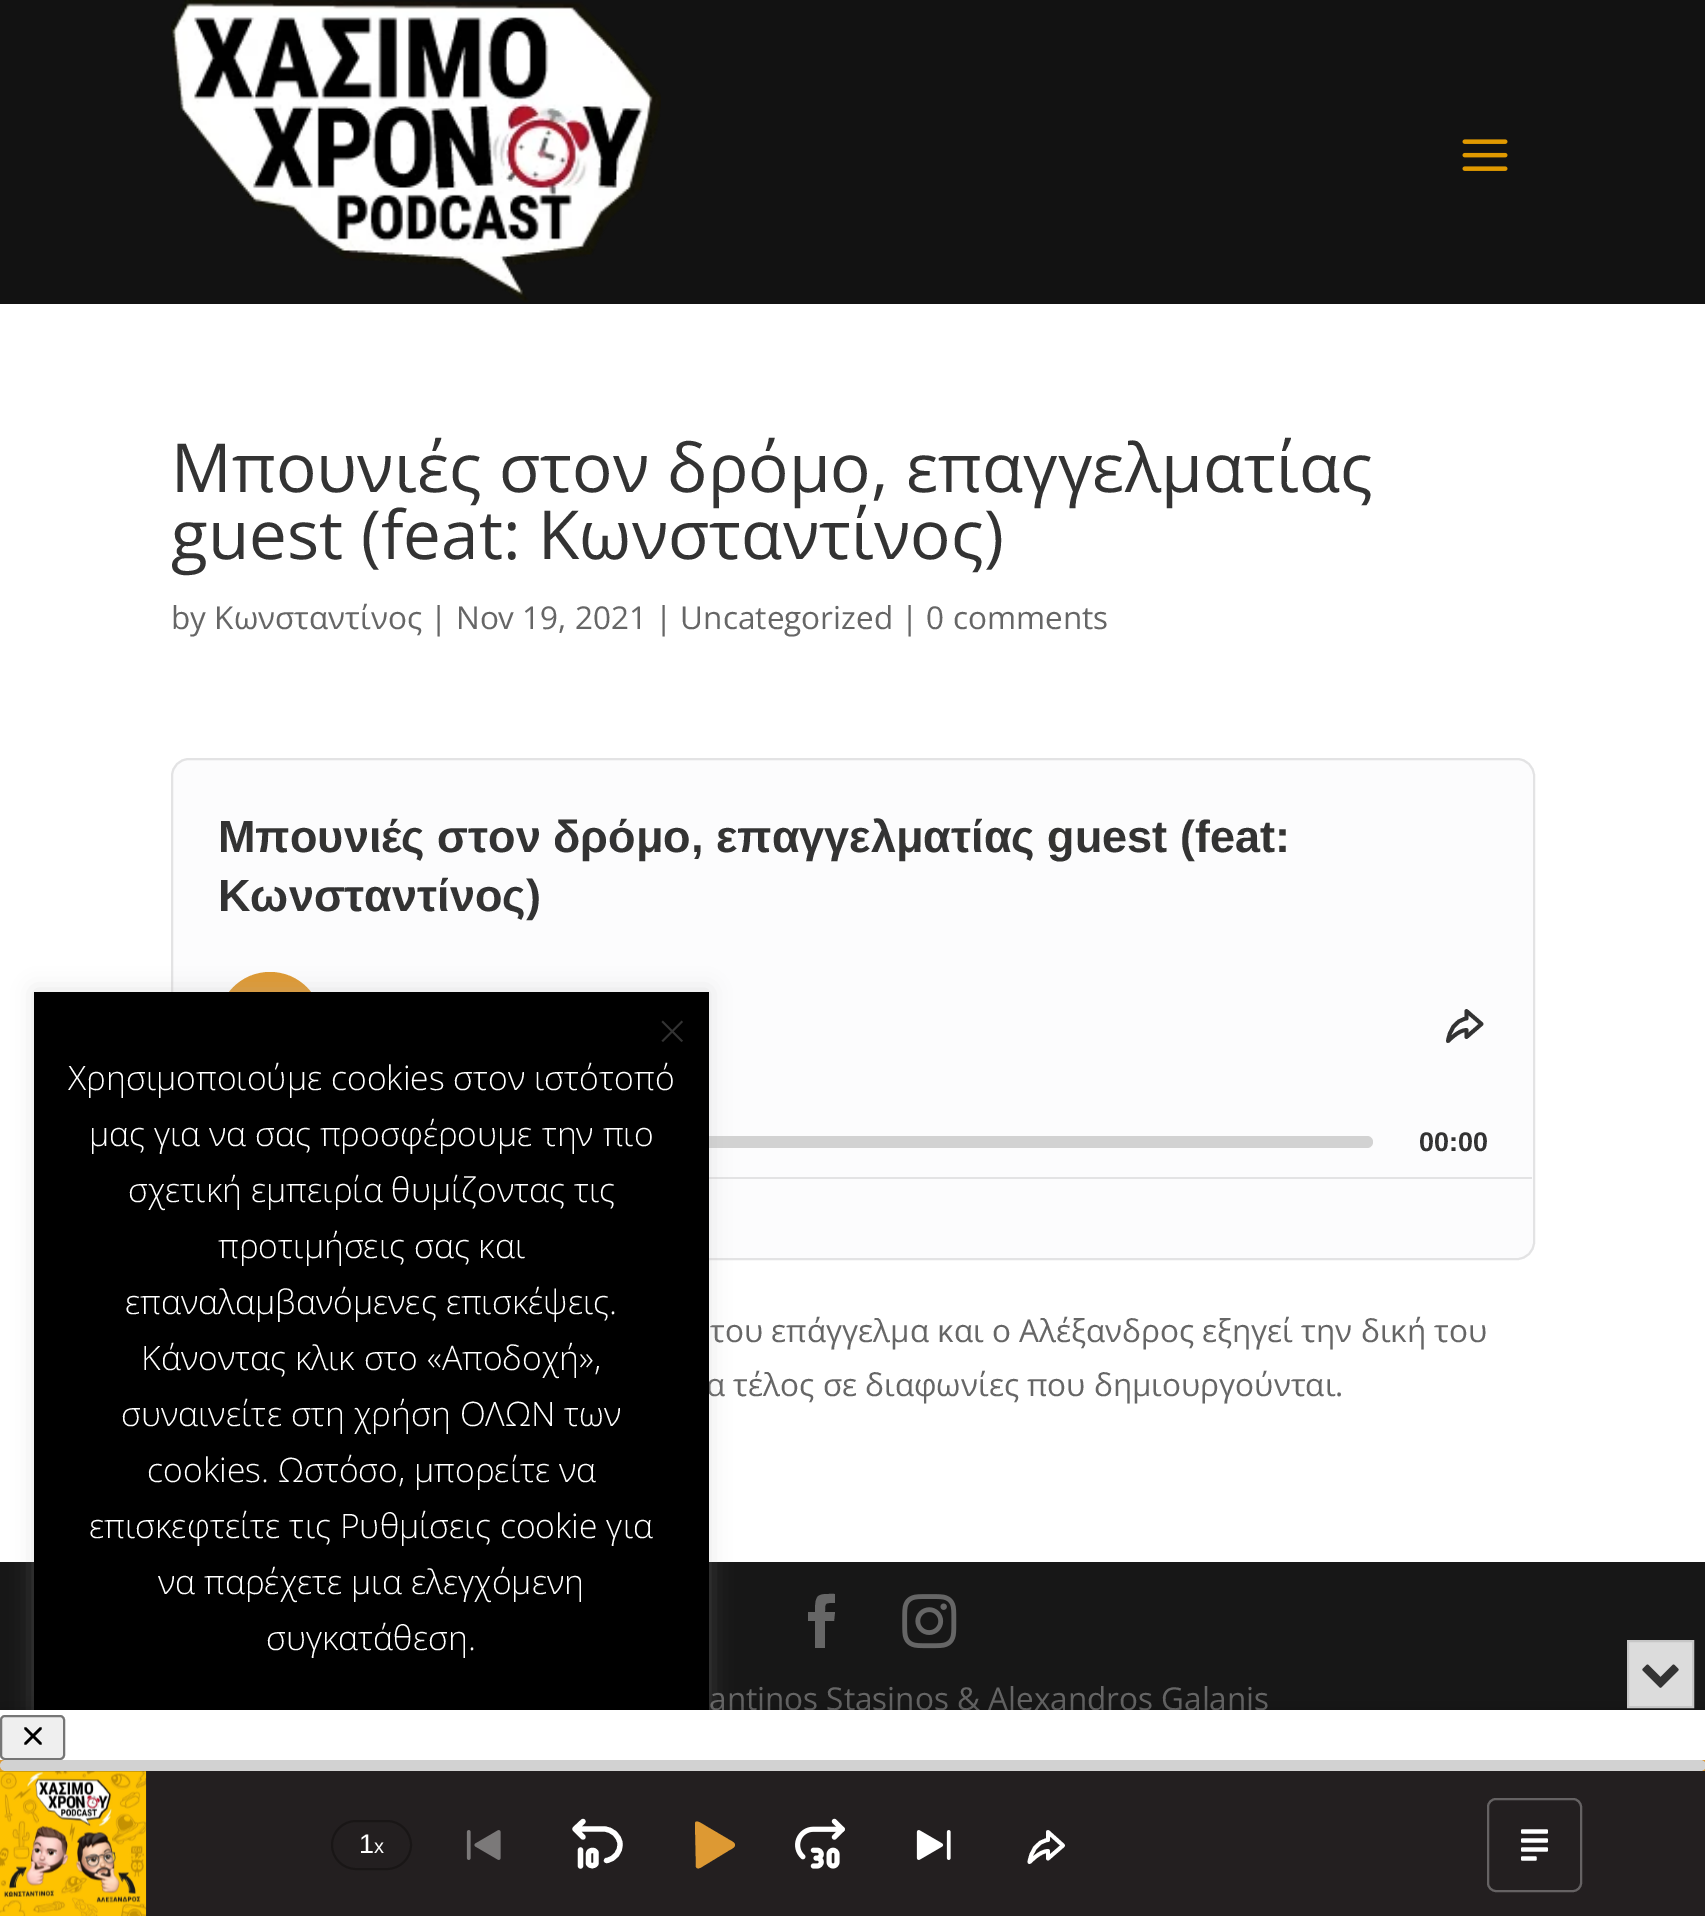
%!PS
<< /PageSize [1705 1916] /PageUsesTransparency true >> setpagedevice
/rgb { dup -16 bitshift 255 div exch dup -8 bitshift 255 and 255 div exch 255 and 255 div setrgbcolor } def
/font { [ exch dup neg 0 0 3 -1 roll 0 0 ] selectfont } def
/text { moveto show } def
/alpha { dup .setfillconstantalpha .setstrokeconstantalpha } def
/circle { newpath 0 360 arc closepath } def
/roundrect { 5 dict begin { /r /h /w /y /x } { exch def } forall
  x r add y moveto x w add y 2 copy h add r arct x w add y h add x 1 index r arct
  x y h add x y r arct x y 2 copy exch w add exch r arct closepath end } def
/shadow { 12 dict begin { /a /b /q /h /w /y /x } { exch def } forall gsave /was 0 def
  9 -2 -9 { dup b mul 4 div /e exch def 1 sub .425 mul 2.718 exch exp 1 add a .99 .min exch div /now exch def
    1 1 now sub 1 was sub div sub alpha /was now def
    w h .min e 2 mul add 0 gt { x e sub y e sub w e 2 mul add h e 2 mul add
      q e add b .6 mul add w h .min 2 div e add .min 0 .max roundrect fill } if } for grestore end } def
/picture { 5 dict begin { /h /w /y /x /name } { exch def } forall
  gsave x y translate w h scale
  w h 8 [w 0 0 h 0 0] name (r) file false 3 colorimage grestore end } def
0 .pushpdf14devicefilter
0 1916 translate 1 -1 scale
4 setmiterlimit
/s1 { /OpenSans-Regular 67.5 font 16#333333 rgb } def
/s2 { /OpenSans-Regular 31.5 font 16#666666 rgb } def
/s3 { /LiberationSans-Bold 45 font 16#333333 rgb } def
/s4 { /LiberationSans-Bold 27 font 16#333333 rgb } def
/s5 { /OpenSans-Light 50 font 16#333333 rgb } def
/s6 { /OpenSans-Light 33.75 font 16#FFFFFF rgb } def
/s7 { /LiberationSans-Regular 27 font 16#FFFFFF rgb } def
/s8 { /LiberationSans-Regular 20 font 16#FFFFFF rgb } def
16#FFFFFF rgb
0 0 1705 1916 rectfill
16#121212 rgb
0 0 1705 304 rectfill
(pic1.raw) 171 0 490 303 picture
(pic2.raw) 1462 139 46 32 picture
s1
(Μπουνιές στον δρόμο, επαγγελματίας) 171 492 text
(guest \(feat: Κωνσταντίνος\)) 171 559 text
s2
(by Κωνσταντίνος | Nov 19, 2021 | Uncategorized | 0 comments) 171 629 text
16#FCFCFD rgb
172 759 1362 500 17 roundrect gsave fill grestore
16#E3E3E4 rgb
2 setlinewidth
stroke
s3
(Μπουνιές στον δρόμο, επαγγελματίας guest \(feat:) 218 852 text
(Κωνσταντίνος\)) 218 911 text
16#DD9933 rgb
270 1024 52 circle fill
16#333333 rgb
3.8 setlinewidth
1 setlinecap
1 setlinejoin
1466.5 1011 moveto 1466.5 1018.5 lineto 1454.5 1020.5 1449.5 1031 1448 1041 curveto 1448 1041.5 1458 1030 1466.5 1030 curveto 1466.5 1037 lineto 1481.5 1024 lineto closepath stroke
16#D2D2D2 rgb
333 1136 1040 12 6 roundrect fill
s4
(00:00) 1419 1151 text
16#E3E3E4 rgb
709 1177 823 2 rectfill
s2
(του επάγγελμα και ο Αλέξανδρος εξηγεί την δική του) 710 1342 text
(α τέλος σε διαφωνίες που δημιουργούνται.) 706 1396 text
16#171717 rgb
0 1562 1705 148 rectfill
16#666666 rgb
815 1648 moveto 825 1648 lineto 825 1621 lineto 834 1621 lineto 835 1612 lineto 825 1612 lineto 825 1602 825 1603 835 1603 curveto 835 1594 lineto 818 1594 815 1593 815 1612 curveto 808 1612 lineto 808 1621 lineto 815 1621 lineto closepath fill
(pic3.raw) 902 1594 55 55 picture
(antinos Stasinos & Alexandros Galanis) 709 1710 text
16#ACABAB rgb
34 990 675 891 0 11 0.3 shadow
16#000000 rgb
34 992 675 718 rectfill
s5
(×) 658 1049 text
s6
(Χρησιμοποιούμε cookies στον ιστότοπό) 68 1090 text
(μας για να σας προσφέρουμε την πιο) 89 1146 text
(σχετική εμπειρία θυμίζοντας τις) 128 1202 text
(προτιμήσεις σας και) 218 1258 text
(επαναλαμβανόμενες επισκέψεις.) 125 1314 text
(Κάνοντας κλικ στο «Αποδοχή»,) 141 1370 text
(συναινείτε στη χρήση ΟΛΩΝ των) 121 1426 text
(cookies. Ωστόσο, μπορείτε να) 147 1482 text
(επισκεφτείτε τις Ρυθμίσεις cookie για) 89 1538 text
(να παρέχετε μια ελεγχόμενη) 158 1594 text
(συγκατάθεση.) 266 1650 text
16#000000 rgb
0 1715 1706 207 0 11 0.35 shadow
16#FFFFFF rgb
0 1710 1705 50 rectfill
16#EFEFEF rgb
1 1716 63 43 4 roundrect gsave fill grestore
16#767676 rgb
2 setlinewidth
0 setlinecap
0 setlinejoin
stroke
16#000000 rgb
2.5 setlinewidth
1 setlinecap
1 setlinejoin
40.5 1728.5 moveto 25.5 1743.5 lineto 25.5 1728.5 moveto 40.5 1743.5 lineto stroke
16#DCDCDC rgb
1628 1641 moveto 1693 1641 lineto 1693 1707 lineto 1628 1707 lineto closepath gsave fill grestore
16#C6C6C6 rgb
2 setlinewidth
0 setlinecap
0 setlinejoin
stroke
(pic4.raw) 1642 1664 37 24 picture
16#231F20 rgb
0 1771 1705 145 rectfill
16#DD9933 rgb
0 1760 1705 11 rectfill
(pic5.raw) 0 1770 147 146 picture
16#D2D2D2 rgb
0 1760 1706 11 5.5 roundrect fill
16#191616 rgb
332 1821 79 48 24 roundrect stroke
s7
(1) 359 1853 text
s8
(x) 374 1853 text
(pic6.raw) 466 1830 35 30 picture
5.2 setlinewidth
1 setlinecap
1 setlinejoin
583 1837 moveto 575 1829 lineto 583 1821.5 lineto 606.5 1860.5 moveto 615 1859 620.5 1852 620 1843.5 curveto 619 1835.5 612.5 1829.5 604 1829 curveto 575 1829 lineto 580.5 1850 moveto 580.5 1866 lineto 588.5 1854 moveto 588.5 1863.5 lineto 590 1866.5 594.5 1866.5 596 1863.5 curveto 596 1852.5 lineto 594.5 1849 588.5 1850 588.5 1854 curveto stroke
16#DD9933 rgb
695 1824 moveto 696 1867 lineto 698 1871 704 1865 705 1865 curveto 728 1851 lineto 729 1850 735 1848 735 1845 curveto 735 1842 729 1840 728 1839 curveto 711 1829 lineto 702 1824 695 1818 695 1824 curveto fill
(pic7.raw) 795 1818 50 51 picture
(pic8.raw) 916 1830 35 30 picture
16#FFFFFF rgb
3.8 setlinewidth
1048 1832 moveto 1048 1840 lineto 1036 1841.5 1031 1852.5 1029.5 1862 curveto 1029.5 1862.5 1039.5 1851 1048 1851 curveto 1048 1858.5 lineto 1063 1845.5 lineto closepath stroke
16#656263 rgb
2 setlinewidth
0 setlinecap
0 setlinejoin
1488 1799 93 92 8 roundrect stroke
(pic9.raw) 1521 1829 27 32 picture
.poppdf14devicefilter showpage
